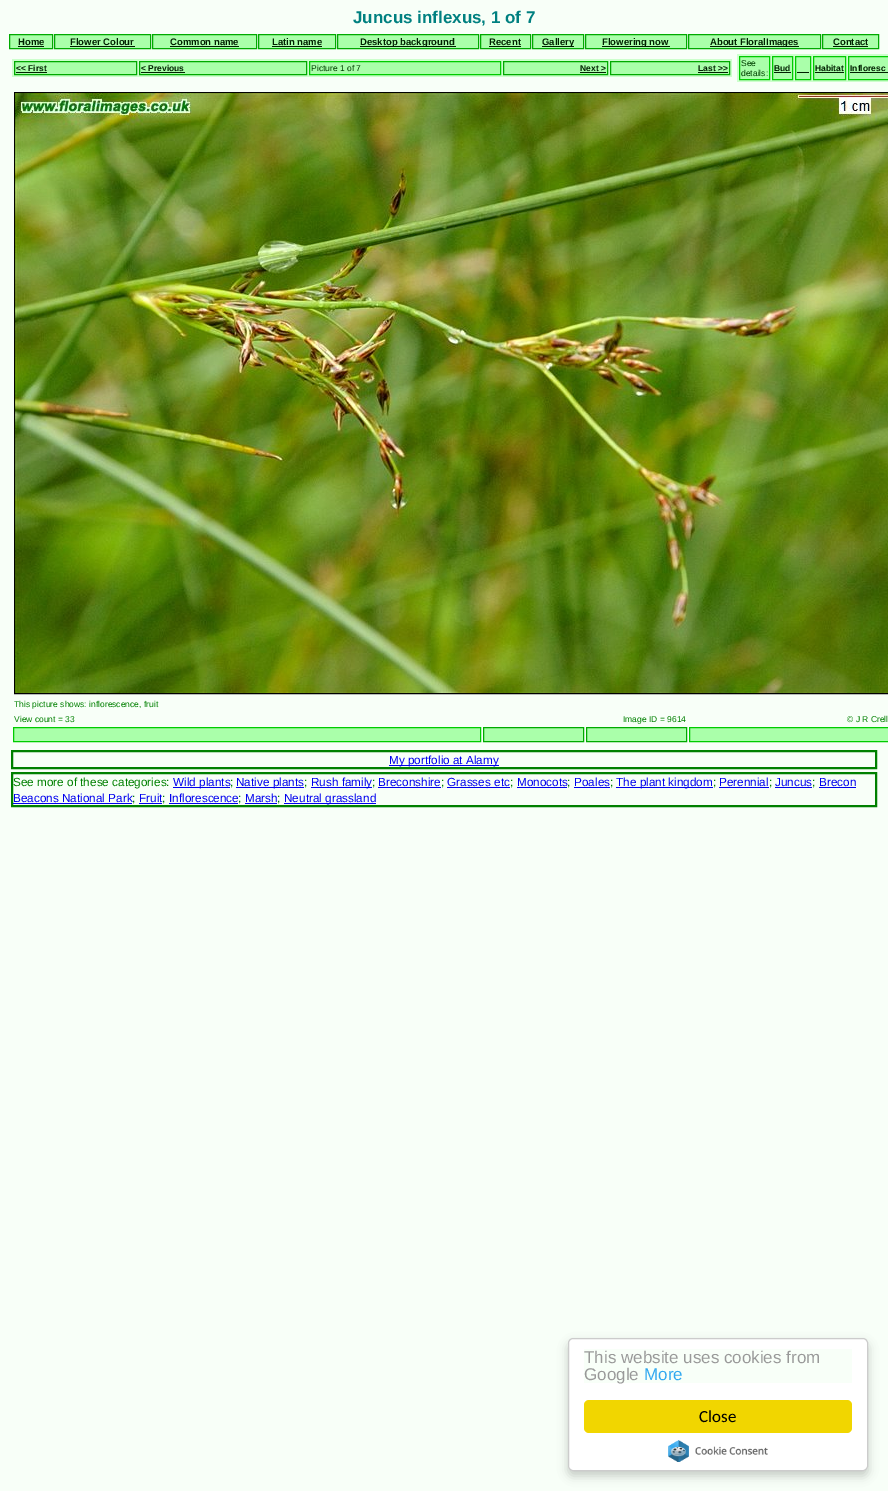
%!PS
<< /PageSize [888 1491] /PageUsesTransparency true >> setpagedevice
/rgb { dup -16 bitshift 255 div exch dup -8 bitshift 255 and 255 div exch 255 and 255 div setrgbcolor } def
/font { [ exch dup neg 0 0 3 -1 roll 0 0 ] selectfont } def
/text { moveto show } def
/alpha { dup .setfillconstantalpha .setstrokeconstantalpha } def
/roundrect { 5 dict begin { /r /h /w /y /x } { exch def } forall
  x r add y moveto x w add y 2 copy h add r arct x w add y h add x 1 index r arct
  x y h add x y r arct x y 2 copy exch w add exch r arct closepath end } def
/shadow { 12 dict begin { /a /b /q /h /w /y /x } { exch def } forall gsave /was 0 def
  9 -2 -9 { dup b mul 4 div /e exch def 1 sub .425 mul 2.718 exch exp 1 add a .99 .min exch div /now exch def
    1 1 now sub 1 was sub div sub alpha /was now def
    w h .min e 2 mul add 0 gt { x e sub y e sub w e 2 mul add h e 2 mul add
      q e add b .6 mul add w h .min 2 div e add .min 0 .max roundrect fill } if } for grestore end } def
/picture { 5 dict begin { /h /w /y /x /name } { exch def } forall
  gsave x y translate w h scale
  w h 8 [w 0 0 h 0 0] name (r) file false 3 colorimage grestore end } def
0 .pushpdf14devicefilter
0 1491 translate 1 -1 scale
4 setmiterlimit
/s1 { /LiberationSans-Bold 17 font 16#008080 rgb } def
/s2 { /LiberationSans-Bold 9.5 font 16#002000 rgb } def
/s3 { /LiberationSans-Bold 8.5 font 16#002000 rgb } def
/s4 { /LiberationSans-Regular 8.5 font 16#004000 rgb } def
/s5 { /LiberationSans-Regular 8.5 font 16#008000 rgb } def
/s6 { /LiberationSans-Regular 11.75 font 16#0000EE rgb } def
/s7 { /LiberationSans-Regular 11.75 font 16#008000 rgb } def
/s8 { /LiberationSans-Regular 17 font 16#999999 rgb } def
/s9 { /LiberationSans-Regular 17 font 16#31A8F0 rgb } def
/s10 { /Carlito-Regular 17 font 16#000000 rgb } def
16#F8FFF8 rgb
0 0 888 1491 rectfill
s1
(Juncus inflexus, 1 of 7) 353 23 text
16#AAFFAA rgb
9.5 34.5 moveto 52.5 34.5 lineto 52.5 48.5 lineto 9.5 48.5 lineto closepath gsave fill grestore
16#00AA00 rgb
stroke
s2
(Home) 18 45 text
18 46 26 1 rectfill
16#AAFFAA rgb
54.5 34.5 moveto 150.5 34.5 lineto 150.5 48.5 lineto 54.5 48.5 lineto closepath gsave fill grestore
16#00AA00 rgb
stroke
s2
(Flower Colour) 70 45 text
70 46 65 1 rectfill
16#AAFFAA rgb
152.5 34.5 moveto 256.5 34.5 lineto 256.5 48.5 lineto 152.5 48.5 lineto closepath gsave fill grestore
16#00AA00 rgb
stroke
s2
(Common name) 170 45 text
170 46 69 1 rectfill
16#AAFFAA rgb
258.5 34.5 moveto 335.5 34.5 lineto 335.5 48.5 lineto 258.5 48.5 lineto closepath gsave fill grestore
16#00AA00 rgb
stroke
s2
(Latin name) 272 45 text
272 46 50 1 rectfill
16#AAFFAA rgb
337.5 34.5 moveto 478.5 34.5 lineto 478.5 48.5 lineto 337.5 48.5 lineto closepath gsave fill grestore
16#00AA00 rgb
stroke
16#002000 rgb
360 46 96 1 rectfill
(Desktop background) 360 45 text
16#AAFFAA rgb
480.5 34.5 moveto 530.5 34.5 lineto 530.5 48.5 lineto 480.5 48.5 lineto closepath gsave fill grestore
16#00AA00 rgb
stroke
s2
(Recent) 489 45 text
489 46 32 1 rectfill
16#AAFFAA rgb
532.5 34.5 moveto 583.5 34.5 lineto 583.5 48.5 lineto 532.5 48.5 lineto closepath gsave fill grestore
16#00AA00 rgb
stroke
16#002000 rgb
542 46 32 1 rectfill
(Gallery) 542 45 text
16#AAFFAA rgb
585.5 34.5 moveto 686.5 34.5 lineto 686.5 48.5 lineto 585.5 48.5 lineto closepath gsave fill grestore
16#00AA00 rgb
stroke
16#002000 rgb
602 46 68 1 rectfill
(Flowering now) 602 45 text
16#AAFFAA rgb
688.5 34.5 moveto 820.5 34.5 lineto 820.5 48.5 lineto 688.5 48.5 lineto closepath gsave fill grestore
16#00AA00 rgb
stroke
16#002000 rgb
710 46 89 1 rectfill
(About FloralImages) 710 45 text
16#AAFFAA rgb
822.5 34.5 moveto 878.5 34.5 lineto 878.5 48.5 lineto 822.5 48.5 lineto closepath gsave fill grestore
16#00AA00 rgb
stroke
s2
(Contact) 833 45 text
833 46 35 1 rectfill
16#CCFFCC rgb
12 59 720 18 rectfill
16#AAFFAA rgb
14.5 61.5 moveto 136.5 61.5 lineto 136.5 74.5 lineto 14.5 74.5 lineto closepath gsave fill grestore
16#00AA00 rgb
stroke
s3
(<< First) 16 71 text
16 72 31 1 rectfill
16#AAFFAA rgb
139.5 61.5 moveto 306.5 61.5 lineto 306.5 74.5 lineto 139.5 74.5 lineto closepath gsave fill grestore
16#00AA00 rgb
stroke
s3
(< Previous) 141 71 text
141 72 44 1 rectfill
16#AAFFAA rgb
309.5 61.5 moveto 500.5 61.5 lineto 500.5 74.5 lineto 309.5 74.5 lineto closepath gsave fill grestore
16#00CC00 rgb
stroke
s4
(Picture 1 of 7) 311 71 text
16#AAFFAA rgb
503.5 61.5 moveto 607.5 61.5 lineto 607.5 74.5 lineto 503.5 74.5 lineto closepath gsave fill grestore
16#00AA00 rgb
stroke
s3
(Next >) 580 71 text
580 72 26 1 rectfill
16#AAFFAA rgb
610.5 61.5 moveto 729.5 61.5 lineto 729.5 74.5 lineto 610.5 74.5 lineto closepath gsave fill grestore
16#00AA00 rgb
stroke
s3
(Last >>) 698 71 text
698 72 30 1 rectfill
16#CCFFCC rgb
737 54 151 28 rectfill
16#AAFFAA rgb
739.5 56.5 moveto 769.5 56.5 lineto 769.5 79.5 lineto 739.5 79.5 lineto closepath gsave fill grestore
16#00CC00 rgb
stroke
s4
(See) 741 66 text
(details:) 741 76 text
16#AAFFAA rgb
772.5 56.5 moveto 792.5 56.5 lineto 792.5 79.5 lineto 772.5 79.5 lineto closepath gsave fill grestore
16#00CC00 rgb
stroke
s3
(Bud) 774 71 text
774 72 17 1 rectfill
16#AAFFAA rgb
795.5 56.5 moveto 810.5 56.5 lineto 810.5 79.5 lineto 795.5 79.5 lineto closepath gsave fill grestore
16#00CC00 rgb
stroke
16#002000 rgb
797 72 12 1 rectfill
16#AAFFAA rgb
813.5 56.5 moveto 845.5 56.5 lineto 845.5 79.5 lineto 813.5 79.5 lineto closepath gsave fill grestore
16#00CC00 rgb
stroke
s3
(Habitat) 815 71 text
815 72 29 1 rectfill
16#AAFFAA rgb
848.5 56.5 moveto 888.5 56.5 lineto 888.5 79.5 lineto 848.5 79.5 lineto closepath gsave fill grestore
16#00CC00 rgb
stroke
s3
(Infloresc) 850 71 text
850 72 38 1 rectfill
16#000000 rgb
14.5 92.5 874 601 rectstroke
(pic1.raw) 15 93 873 600 picture
s5
(This picture shows: inflorescence, fruit) 14 707 text
(View count = 33) 14 722 text
(Image ID = 9614) 623 722 text
(© J R Crell) 847 722 text
16#AAFFAA rgb
13.5 727.5 moveto 480.5 727.5 lineto 480.5 741.5 lineto 13.5 741.5 lineto closepath gsave fill grestore
16#00CC00 rgb
stroke
16#AAFFAA rgb
483.5 727.5 moveto 583.5 727.5 lineto 583.5 741.5 lineto 483.5 741.5 lineto closepath gsave fill grestore
16#00AA00 rgb
stroke
16#AAFFAA rgb
586.5 727.5 moveto 686.5 727.5 lineto 686.5 741.5 lineto 586.5 741.5 lineto closepath gsave fill grestore
16#00AA00 rgb
stroke
16#AAFFAA rgb
689.5 727.5 moveto 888.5 727.5 lineto 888.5 741.5 lineto 689.5 741.5 lineto closepath gsave fill grestore
16#00CC00 rgb
stroke
16#008000 rgb
2 setlinewidth
12 751 864 17 rectstroke
16#0000EE rgb
389 765 110 1 rectfill
s6
(My portfolio at Alamy) 389 764 text
16#008000 rgb
12 773 864 33 rectstroke
(See more of these categories:) 13 786 text
16#0000EE rgb
173 787 57 1 rectfill
(Wild plants) 173 786 text
s7
(;) 230 786 text
16#0000EE rgb
236 787 68 1 rectfill
(Native plants) 236 786 text
s7
(;) 304 786 text
16#0000EE rgb
311 787 61 1 rectfill
(Rush family) 311 786 text
s7
(;) 372 786 text
s6
(Breconshire) 378 786 text
s7
(;) 441 786 text
16#0000EE rgb
378 787 63 1 rectfill
(Grasses etc) 447 786 text
s7
(;) 510 786 text
16#0000EE rgb
447 787 63 1 rectfill
(Monocots) 517 786 text
s7
(;) 567 786 text
16#0000EE rgb
517 787 50 1 rectfill
(Poales) 574 786 text
s7
(;) 610 786 text
16#0000EE rgb
574 787 36 1 rectfill
616 787 97 1 rectfill
(The plant kingdom) 616 786 text
s7
(;) 713 786 text
s6
(Perennial) 719 786 text
s7
(;) 769 786 text
16#0000EE rgb
719 787 50 1 rectfill
(Juncus) 775 786 text
s7
(;) 812 786 text
16#0000EE rgb
775 787 37 1 rectfill
(Brecon) 819 786 text
819 787 37 1 rectfill
(Beacons National Park) 13 802 text
s7
(;) 132 802 text
16#0000EE rgb
13 803 119 1 rectfill
(Fruit) 139 802 text
s7
(;) 162 802 text
16#0000EE rgb
139 803 23 1 rectfill
(Inflorescence) 169 802 text
s7
(;) 238 802 text
16#0000EE rgb
169 803 69 1 rectfill
(Marsh) 245 802 text
s7
(;) 277 802 text
16#0000EE rgb
245 803 32 1 rectfill
284 803 92 1 rectfill
(Neutral grassland) 284 802 text
16#000000 rgb
568 1343 300 133 5 5 0.2 shadow
16#FFFFFF rgb
568.5 1338.5 299 132 4.5 roundrect gsave fill grestore
16#CCCCCC rgb
1 setlinewidth
stroke
16#F8FFF8 rgb
584 1349 268 34 rectfill
s8
(This website uses cookies from) 584 1363 text
(Google) 584 1380 text
s9
(More) 644 1380 text
16#F1D600 rgb
584 1400 268 33 5 roundrect fill
s10
(Close) 699 1422 text
(pic2.raw) 668 1440 100 22 picture
.poppdf14devicefilter showpage
